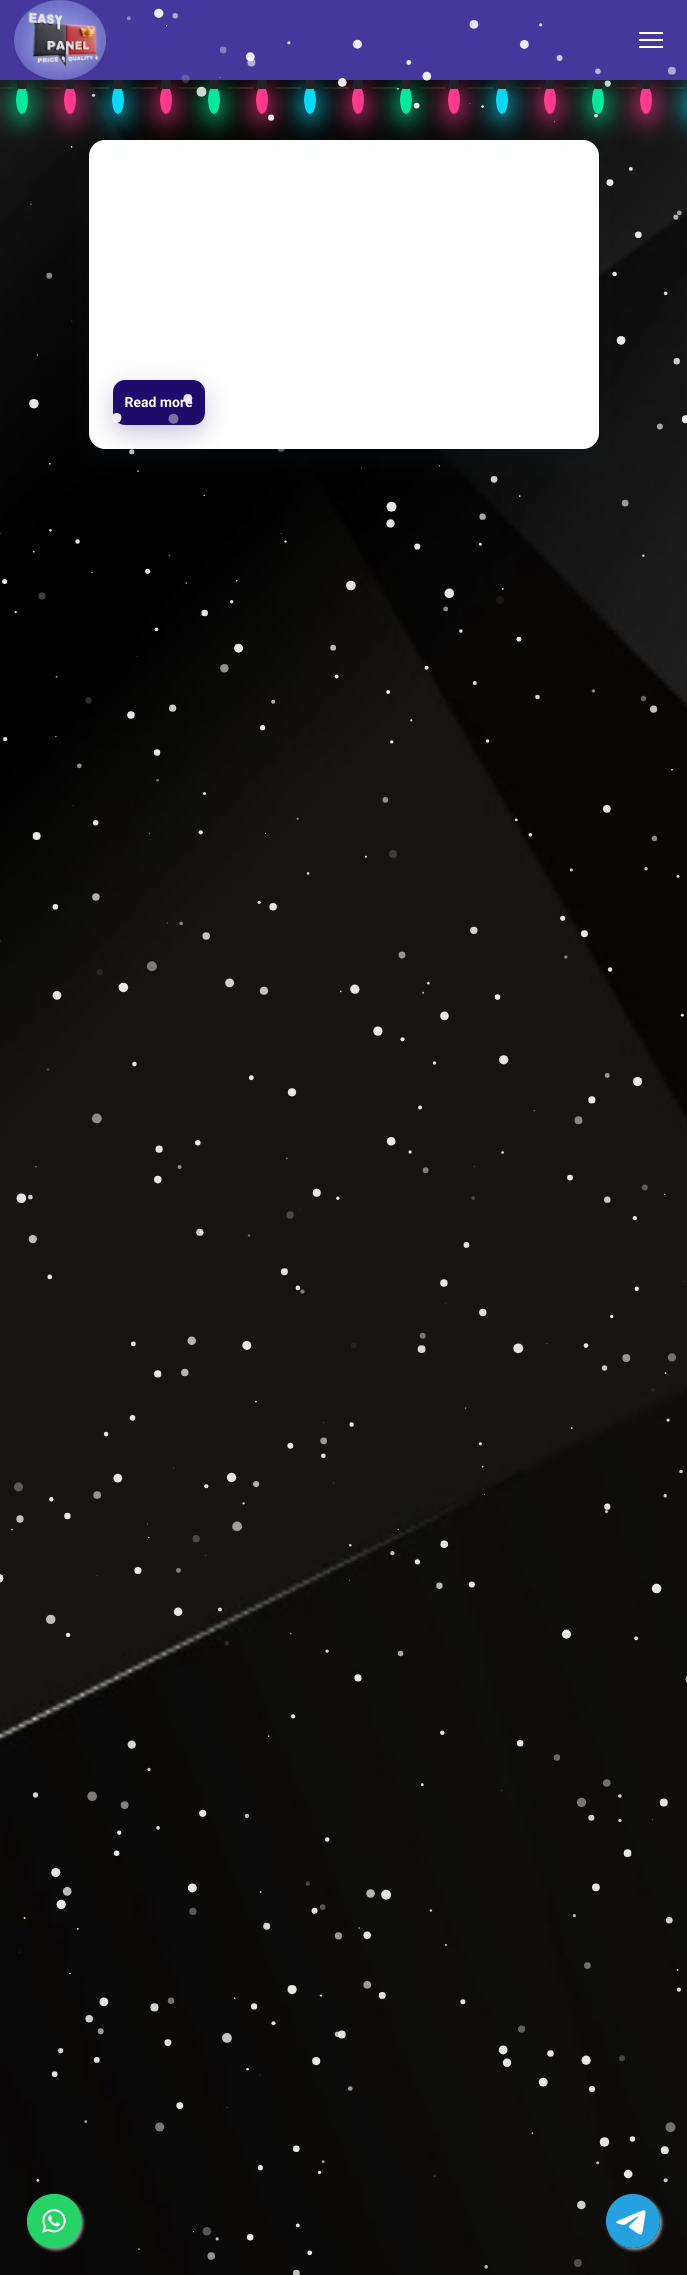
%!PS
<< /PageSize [687 2275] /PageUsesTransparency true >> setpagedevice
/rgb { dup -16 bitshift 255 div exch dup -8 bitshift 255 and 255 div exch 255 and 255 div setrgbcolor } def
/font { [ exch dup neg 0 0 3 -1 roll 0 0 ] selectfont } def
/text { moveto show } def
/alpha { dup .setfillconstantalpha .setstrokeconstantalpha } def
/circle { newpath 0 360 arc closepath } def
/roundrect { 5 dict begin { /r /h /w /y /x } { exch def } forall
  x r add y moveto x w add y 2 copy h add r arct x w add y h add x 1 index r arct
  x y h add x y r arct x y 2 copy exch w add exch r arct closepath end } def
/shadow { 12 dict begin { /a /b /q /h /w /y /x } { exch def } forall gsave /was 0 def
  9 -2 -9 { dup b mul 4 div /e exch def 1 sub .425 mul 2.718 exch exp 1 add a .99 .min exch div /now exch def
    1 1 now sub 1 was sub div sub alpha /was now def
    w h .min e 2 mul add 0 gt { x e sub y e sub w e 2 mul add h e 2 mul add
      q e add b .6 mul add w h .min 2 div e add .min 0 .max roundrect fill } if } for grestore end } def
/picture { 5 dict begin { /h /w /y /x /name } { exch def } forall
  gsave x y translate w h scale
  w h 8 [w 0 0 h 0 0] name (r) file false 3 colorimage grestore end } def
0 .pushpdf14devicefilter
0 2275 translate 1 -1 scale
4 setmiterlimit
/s1 { /Roboto-Bold 14 font 16#FFFFFF rgb } def
16#45379B rgb
0 0 687 2275 rectfill
(pic2.raw) 14 0 92 80 picture
16#FFFFFF rgb
639 39 24 2 rectfill
639 32 24 2 rectfill
639 46 24 2 rectfill
(pic3.raw) 0 80 687 2195 picture
16#FE3A8E rgb
-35 88 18 34 9 12 1 shadow
16#222222 rgb
0 87 13 2 rectfill
gsave
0 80 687 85 rectclip
16#06E99C rgb
13 88 18 34 9 12 1 shadow
grestore
16#06E99C rgb
22 86 moveto 25.5 86 28 92.5 28 100 curveto 28 107.5 25.5 114 22 114 curveto 18.5 114 16 107.5 16 100 curveto 16 92.5 18.5 86 22 86 curveto closepath fill
gsave
0 80 687 85 rectclip
16#222222 rgb
17 79 10 10 3 roundrect fill
grestore
16#222222 rgb
35 87 26 2 rectfill
16#FFFFFF rgb
89 140 510 309 16 roundrect fill
gsave
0 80 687 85 rectclip
16#FE3A8E rgb
61 88 18 34 9 12 1 shadow
grestore
16#FE3A8E rgb
70 86 moveto 73.5 86 76 92.5 76 100 curveto 76 107.5 73.5 114 70 114 curveto 66.5 114 64 107.5 64 100 curveto 64 92.5 66.5 86 70 86 curveto closepath fill
gsave
0 80 687 85 rectclip
16#222222 rgb
65 79 10 10 3 roundrect fill
grestore
16#222222 rgb
83 87 26 2 rectfill
gsave
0 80 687 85 rectclip
16#08D9F7 rgb
109 88 18 34 9 12 1 shadow
grestore
16#08D9F7 rgb
118 86 moveto 121.5 86 124 92.5 124 100 curveto 124 107.5 121.5 114 118 114 curveto 114.5 114 112 107.5 112 100 curveto 112 92.5 114.5 86 118 86 curveto closepath fill
gsave
0 80 687 85 rectclip
16#222222 rgb
113 79 10 10 3 roundrect fill
grestore
16#222222 rgb
131 87 26 2 rectfill
gsave
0 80 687 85 rectclip
16#FE3A8E rgb
157 88 18 34 9 12 1 shadow
grestore
16#FE3A8E rgb
166 86 moveto 169.5 86 172 92.5 172 100 curveto 172 107.5 169.5 114 166 114 curveto 162.5 114 160 107.5 160 100 curveto 160 92.5 162.5 86 166 86 curveto closepath fill
gsave
0 80 687 85 rectclip
16#222222 rgb
161 79 10 10 3 roundrect fill
grestore
16#222222 rgb
179 87 26 2 rectfill
gsave
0 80 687 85 rectclip
16#06E99C rgb
205 88 18 34 9 12 1 shadow
grestore
16#06E99C rgb
214 86 moveto 217.5 86 220 92.5 220 100 curveto 220 107.5 217.5 114 214 114 curveto 210.5 114 208 107.5 208 100 curveto 208 92.5 210.5 86 214 86 curveto closepath fill
gsave
0 80 687 85 rectclip
16#222222 rgb
209 79 10 10 3 roundrect fill
grestore
16#222222 rgb
227 87 26 2 rectfill
gsave
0 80 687 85 rectclip
16#FE3A8E rgb
253 88 18 34 9 12 1 shadow
grestore
16#FE3A8E rgb
262 86 moveto 265.5 86 268 92.5 268 100 curveto 268 107.5 265.5 114 262 114 curveto 258.5 114 256 107.5 256 100 curveto 256 92.5 258.5 86 262 86 curveto closepath fill
gsave
0 80 687 85 rectclip
16#222222 rgb
257 79 10 10 3 roundrect fill
grestore
16#222222 rgb
275 87 26 2 rectfill
gsave
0 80 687 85 rectclip
16#08D9F7 rgb
301 88 18 34 9 12 1 shadow
grestore
16#08D9F7 rgb
310 86 moveto 313.5 86 316 92.5 316 100 curveto 316 107.5 313.5 114 310 114 curveto 306.5 114 304 107.5 304 100 curveto 304 92.5 306.5 86 310 86 curveto closepath fill
gsave
0 80 687 85 rectclip
16#222222 rgb
305 79 10 10 3 roundrect fill
grestore
16#222222 rgb
323 87 26 2 rectfill
gsave
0 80 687 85 rectclip
16#FE3A8E rgb
349 88 18 34 9 12 1 shadow
grestore
16#FE3A8E rgb
358 86 moveto 361.5 86 364 92.5 364 100 curveto 364 107.5 361.5 114 358 114 curveto 354.5 114 352 107.5 352 100 curveto 352 92.5 354.5 86 358 86 curveto closepath fill
gsave
0 80 687 85 rectclip
16#222222 rgb
353 79 10 10 3 roundrect fill
grestore
16#222222 rgb
371 87 26 2 rectfill
gsave
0 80 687 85 rectclip
16#06E99C rgb
397 88 18 34 9 12 1 shadow
grestore
16#06E99C rgb
406 86 moveto 409.5 86 412 92.5 412 100 curveto 412 107.5 409.5 114 406 114 curveto 402.5 114 400 107.5 400 100 curveto 400 92.5 402.5 86 406 86 curveto closepath fill
gsave
0 80 687 85 rectclip
16#222222 rgb
401 79 10 10 3 roundrect fill
grestore
16#222222 rgb
419 87 26 2 rectfill
gsave
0 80 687 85 rectclip
16#FE3A8E rgb
445 88 18 34 9 12 1 shadow
grestore
16#FE3A8E rgb
454 86 moveto 457.5 86 460 92.5 460 100 curveto 460 107.5 457.5 114 454 114 curveto 450.5 114 448 107.5 448 100 curveto 448 92.5 450.5 86 454 86 curveto closepath fill
gsave
0 80 687 85 rectclip
16#222222 rgb
449 79 10 10 3 roundrect fill
grestore
16#222222 rgb
467 87 26 2 rectfill
gsave
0 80 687 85 rectclip
16#08D9F7 rgb
493 88 18 34 9 12 1 shadow
grestore
16#08D9F7 rgb
502 86 moveto 505.5 86 508 92.5 508 100 curveto 508 107.5 505.5 114 502 114 curveto 498.5 114 496 107.5 496 100 curveto 496 92.5 498.5 86 502 86 curveto closepath fill
gsave
0 80 687 85 rectclip
16#222222 rgb
497 79 10 10 3 roundrect fill
grestore
16#222222 rgb
515 87 26 2 rectfill
gsave
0 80 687 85 rectclip
16#FE3A8E rgb
541 88 18 34 9 12 1 shadow
grestore
16#FE3A8E rgb
550 86 moveto 553.5 86 556 92.5 556 100 curveto 556 107.5 553.5 114 550 114 curveto 546.5 114 544 107.5 544 100 curveto 544 92.5 546.5 86 550 86 curveto closepath fill
gsave
0 80 687 85 rectclip
16#222222 rgb
545 79 10 10 3 roundrect fill
grestore
16#222222 rgb
563 87 26 2 rectfill
gsave
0 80 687 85 rectclip
16#06E99C rgb
589 88 18 34 9 12 1 shadow
grestore
16#06E99C rgb
598 86 moveto 601.5 86 604 92.5 604 100 curveto 604 107.5 601.5 114 598 114 curveto 594.5 114 592 107.5 592 100 curveto 592 92.5 594.5 86 598 86 curveto closepath fill
gsave
0 80 687 85 rectclip
16#222222 rgb
593 79 10 10 3 roundrect fill
grestore
16#222222 rgb
611 87 26 2 rectfill
gsave
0 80 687 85 rectclip
16#FE3A8E rgb
637 88 18 34 9 12 1 shadow
grestore
16#FE3A8E rgb
646 86 moveto 649.5 86 652 92.5 652 100 curveto 652 107.5 649.5 114 646 114 curveto 642.5 114 640 107.5 640 100 curveto 640 92.5 642.5 86 646 86 curveto closepath fill
gsave
0 80 687 85 rectclip
16#222222 rgb
641 79 10 10 3 roundrect fill
grestore
16#222222 rgb
659 87 26 2 rectfill
gsave
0 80 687 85 rectclip
16#08D9F7 rgb
685 88 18 34 9 12 1 shadow
grestore
16#1F0B6C rgb
113 388 92 45 12 12 0.25 shadow
113 380 92 45 12 roundrect fill
s1
(Read more) 125 407 text
(pic1.raw) 0 8 687 2267 picture
16#999999 rgb
29 2196 54 54 27 1.5 1 shadow
16#25D366 rgb
54 2221 27 circle fill
(pic4.raw) 42 2209 24 24 picture
16#999999 rgb
608 2196 54 54 27 1.5 1 shadow
16#FFFFFF rgb
616 2210 30 25 rectfill
(pic5.raw) 606 2194 54 54 picture
.poppdf14devicefilter showpage
